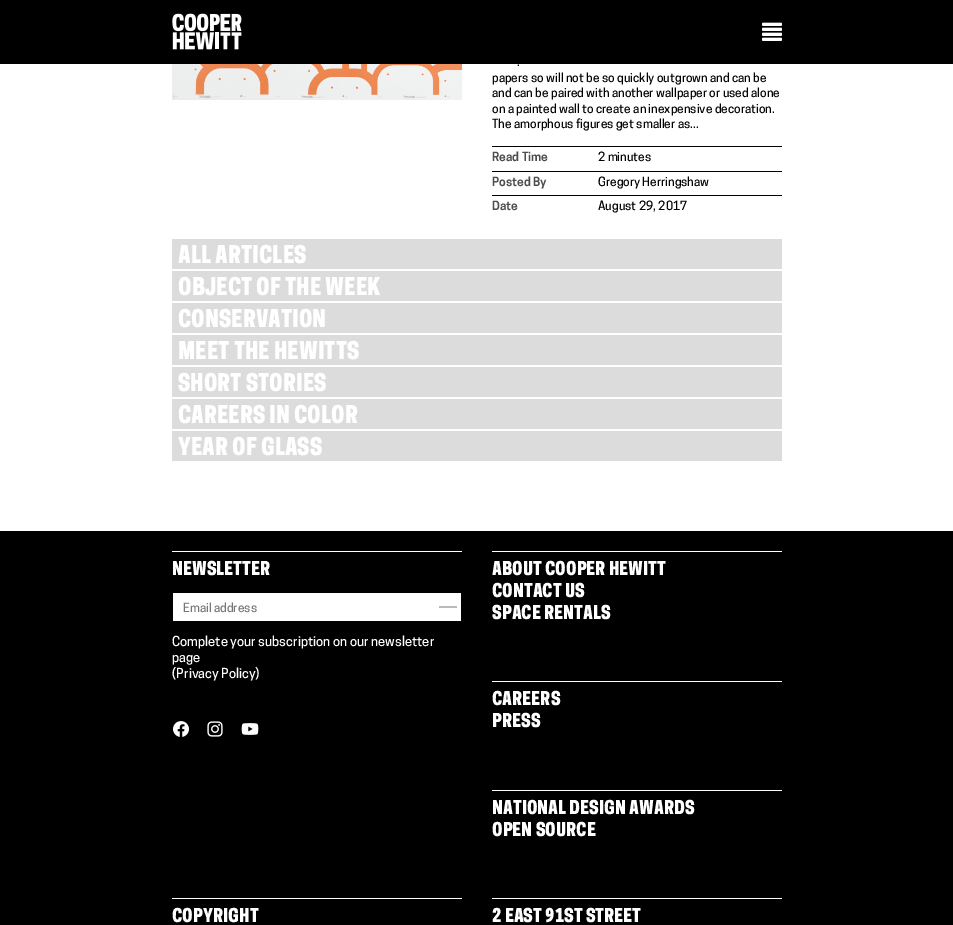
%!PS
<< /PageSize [953 925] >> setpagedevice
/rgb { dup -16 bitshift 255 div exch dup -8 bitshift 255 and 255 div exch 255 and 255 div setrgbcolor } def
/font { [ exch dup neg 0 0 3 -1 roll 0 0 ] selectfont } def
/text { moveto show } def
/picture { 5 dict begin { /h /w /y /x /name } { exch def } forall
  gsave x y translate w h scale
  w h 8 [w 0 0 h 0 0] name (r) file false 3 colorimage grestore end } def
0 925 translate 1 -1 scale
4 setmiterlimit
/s1 { /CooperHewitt-Medium 12 font 16#000000 rgb } def
/s2 { /CooperHewitt-SemiBold 12 font 16#4D4D4D rgb } def
/s3 { /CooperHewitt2-SemiBold 23 font 16#FFFFFF rgb } def
/s4 { /CooperHewitt2-SemiBold 18 font 16#FFFFFF rgb } def
/s5 { /CooperHewitt-Medium 12 font 16#757575 rgb } def
/s6 { /CooperHewitt-Medium 13 font 16#FFFFFF rgb } def
16#FFFFFF rgb
0 0 953 925 rectfill
16#000000 rgb
0 0 953 64 rectfill
(pic1.raw) 172 13 70 37 picture
(pic2.raw) 762 22 20 19 picture
(pic3.raw) 172 64 290 36 picture
s1
(.) 517 66 text
(papers so will not be so quickly outgrown and can be) 492 82 text
(and can be paired with another wallpaper or used alone) 492 97 text
(on a painted wall to create an inexpensive decoration.) 492 113 text
(The amorphous figures get smaller as...) 492 128 text
492 146 290 1 rectfill
s2
(Read Time) 492 161 text
s1
(2 minutes) 598 161 text
492 171 290 1 rectfill
s2
(Posted By) 492 186 text
s1
(Gregory Herringshaw) 598 186 text
492 195 290 1 rectfill
s2
(Date) 492 210 text
s1
(August 29, 2017) 598 210 text
16#DCDCDC rgb
172 239 610 30 rectfill
s3
(ALL ARTICLES) 178 263 text
16#DCDCDC rgb
172 271 610 30 rectfill
s3
(OBJECT OF THE WEEK) 178 295 text
16#DCDCDC rgb
172 303 610 30 rectfill
s3
(CONSERVATION) 178 327 text
16#DCDCDC rgb
172 335 610 30 rectfill
s3
(MEET THE HEWITTS) 178 359 text
16#DCDCDC rgb
172 367 610 30 rectfill
s3
(SHORT STORIES) 178 391 text
16#DCDCDC rgb
172 399 610 30 rectfill
s3
(CAREERS IN COLOR) 178 423 text
16#DCDCDC rgb
172 431 610 30 rectfill
s3
(YEAR OF GLASS) 178 455 text
16#000000 rgb
0 531 953 394 rectfill
16#FFFFFF rgb
172 551 290 1 rectfill
s4
(NEWSLETTER) 172 575 text
173 593 288 28 rectfill
s5
(Email address) 183 612 text
16#BABABA rgb
439 606 18 2 rectfill
s6
(Complete your subscription on our newsletter) 172 646 text
(page) 172 662 text
(\(Privacy Policy\)) 172 678 text
(pic4.raw) 173 721 16 16 picture
(pic5.raw) 207 721 16 16 picture
(pic6.raw) 241 723 18 12 picture
492 551 290 1 rectfill
s4
(ABOUT COOPER HEWITT) 492 575 text
(CONTACT US) 492 597 text
(SPACE RENTALS) 492 619 text
492 681 290 1 rectfill
(CAREERS) 492 705 text
(PRESS) 492 727 text
492 790 290 1 rectfill
(NATIONAL DESIGN AWARDS) 492 814 text
(OPEN SOURCE) 492 836 text
172 898 290 1 rectfill
(COPYRIGHT) 172 922 text
492 898 290 1 rectfill
(2 EAST 91ST STREET) 492 922 text
showpage
